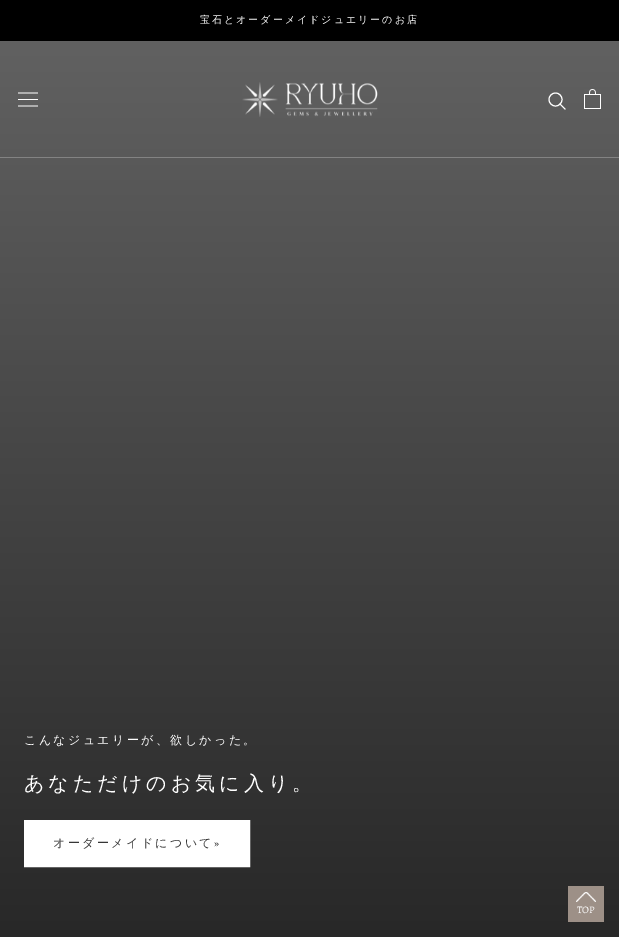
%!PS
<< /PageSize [619 937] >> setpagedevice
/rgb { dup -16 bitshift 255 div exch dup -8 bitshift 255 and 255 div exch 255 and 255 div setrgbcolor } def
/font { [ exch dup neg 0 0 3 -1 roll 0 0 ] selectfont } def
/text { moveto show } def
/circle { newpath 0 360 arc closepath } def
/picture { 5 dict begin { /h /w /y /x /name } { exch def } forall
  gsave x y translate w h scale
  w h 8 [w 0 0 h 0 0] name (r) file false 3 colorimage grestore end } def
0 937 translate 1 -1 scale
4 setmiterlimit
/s1 { /Alegreya-Regular 10 font 16#FFFFFF rgb } def
16#000000 rgb
0 0 619 937 rectfill
/WenQuanYiZenHei-Medium 10 font
16#FFFFFF rgb
200 23 moveto 2 0 (宝石とオーダーメイドジュエリーのお店) ashow
gsave 0 41 moveto 619 41 lineto 619 937 lineto 0 937 lineto closepath clip newpath
<< /ShadingType 2 /ColorSpace /DeviceRGB /Coords [310 937 310 41] /Extend [true true] /Function << /FunctionType 2 /Domain [0 1] /C0 [0.157 0.157 0.157] /C1 [0.38 0.38 0.38] /N 1 >> >> shfill grestore
16#838383 rgb
0 157 619 1 rectfill
(pic1.raw) 18 92 20 15 picture
(pic2.raw) 242 82 136 35 picture
16#FFFFFF rgb
2 setlinecap
565 109 moveto 560 104 lineto stroke
0 setlinecap
555.5 99.5 6.5 circle stroke
(pic3.raw) 584 89 17 20 picture
/WenQuanYiZenHei-Medium 12 font
24 744 moveto 2.4 0 (こんなジュエリーが、欲しかった。) ashow
/WenQuanYiZenHei-Medium 20 font
24 790 moveto 4 0 (あなただけのお気に入り。) ashow
24.5 820.5 225 46 rectstroke
25 821 224 45 rectfill
/WenQuanYiZenHei-Medium 12 font
16#363636 rgb
53 847 moveto 2.4 0 (オーダーメイドについて) ashow
/Alegreya-Regular 12 font
214 847 moveto 2.4 0 (») ashow
16#9D9087 rgb
568 886 36 36 rectfill
(pic4.raw) 576 892 20 10 picture
s1
(TOP) 577 913 text
showpage
